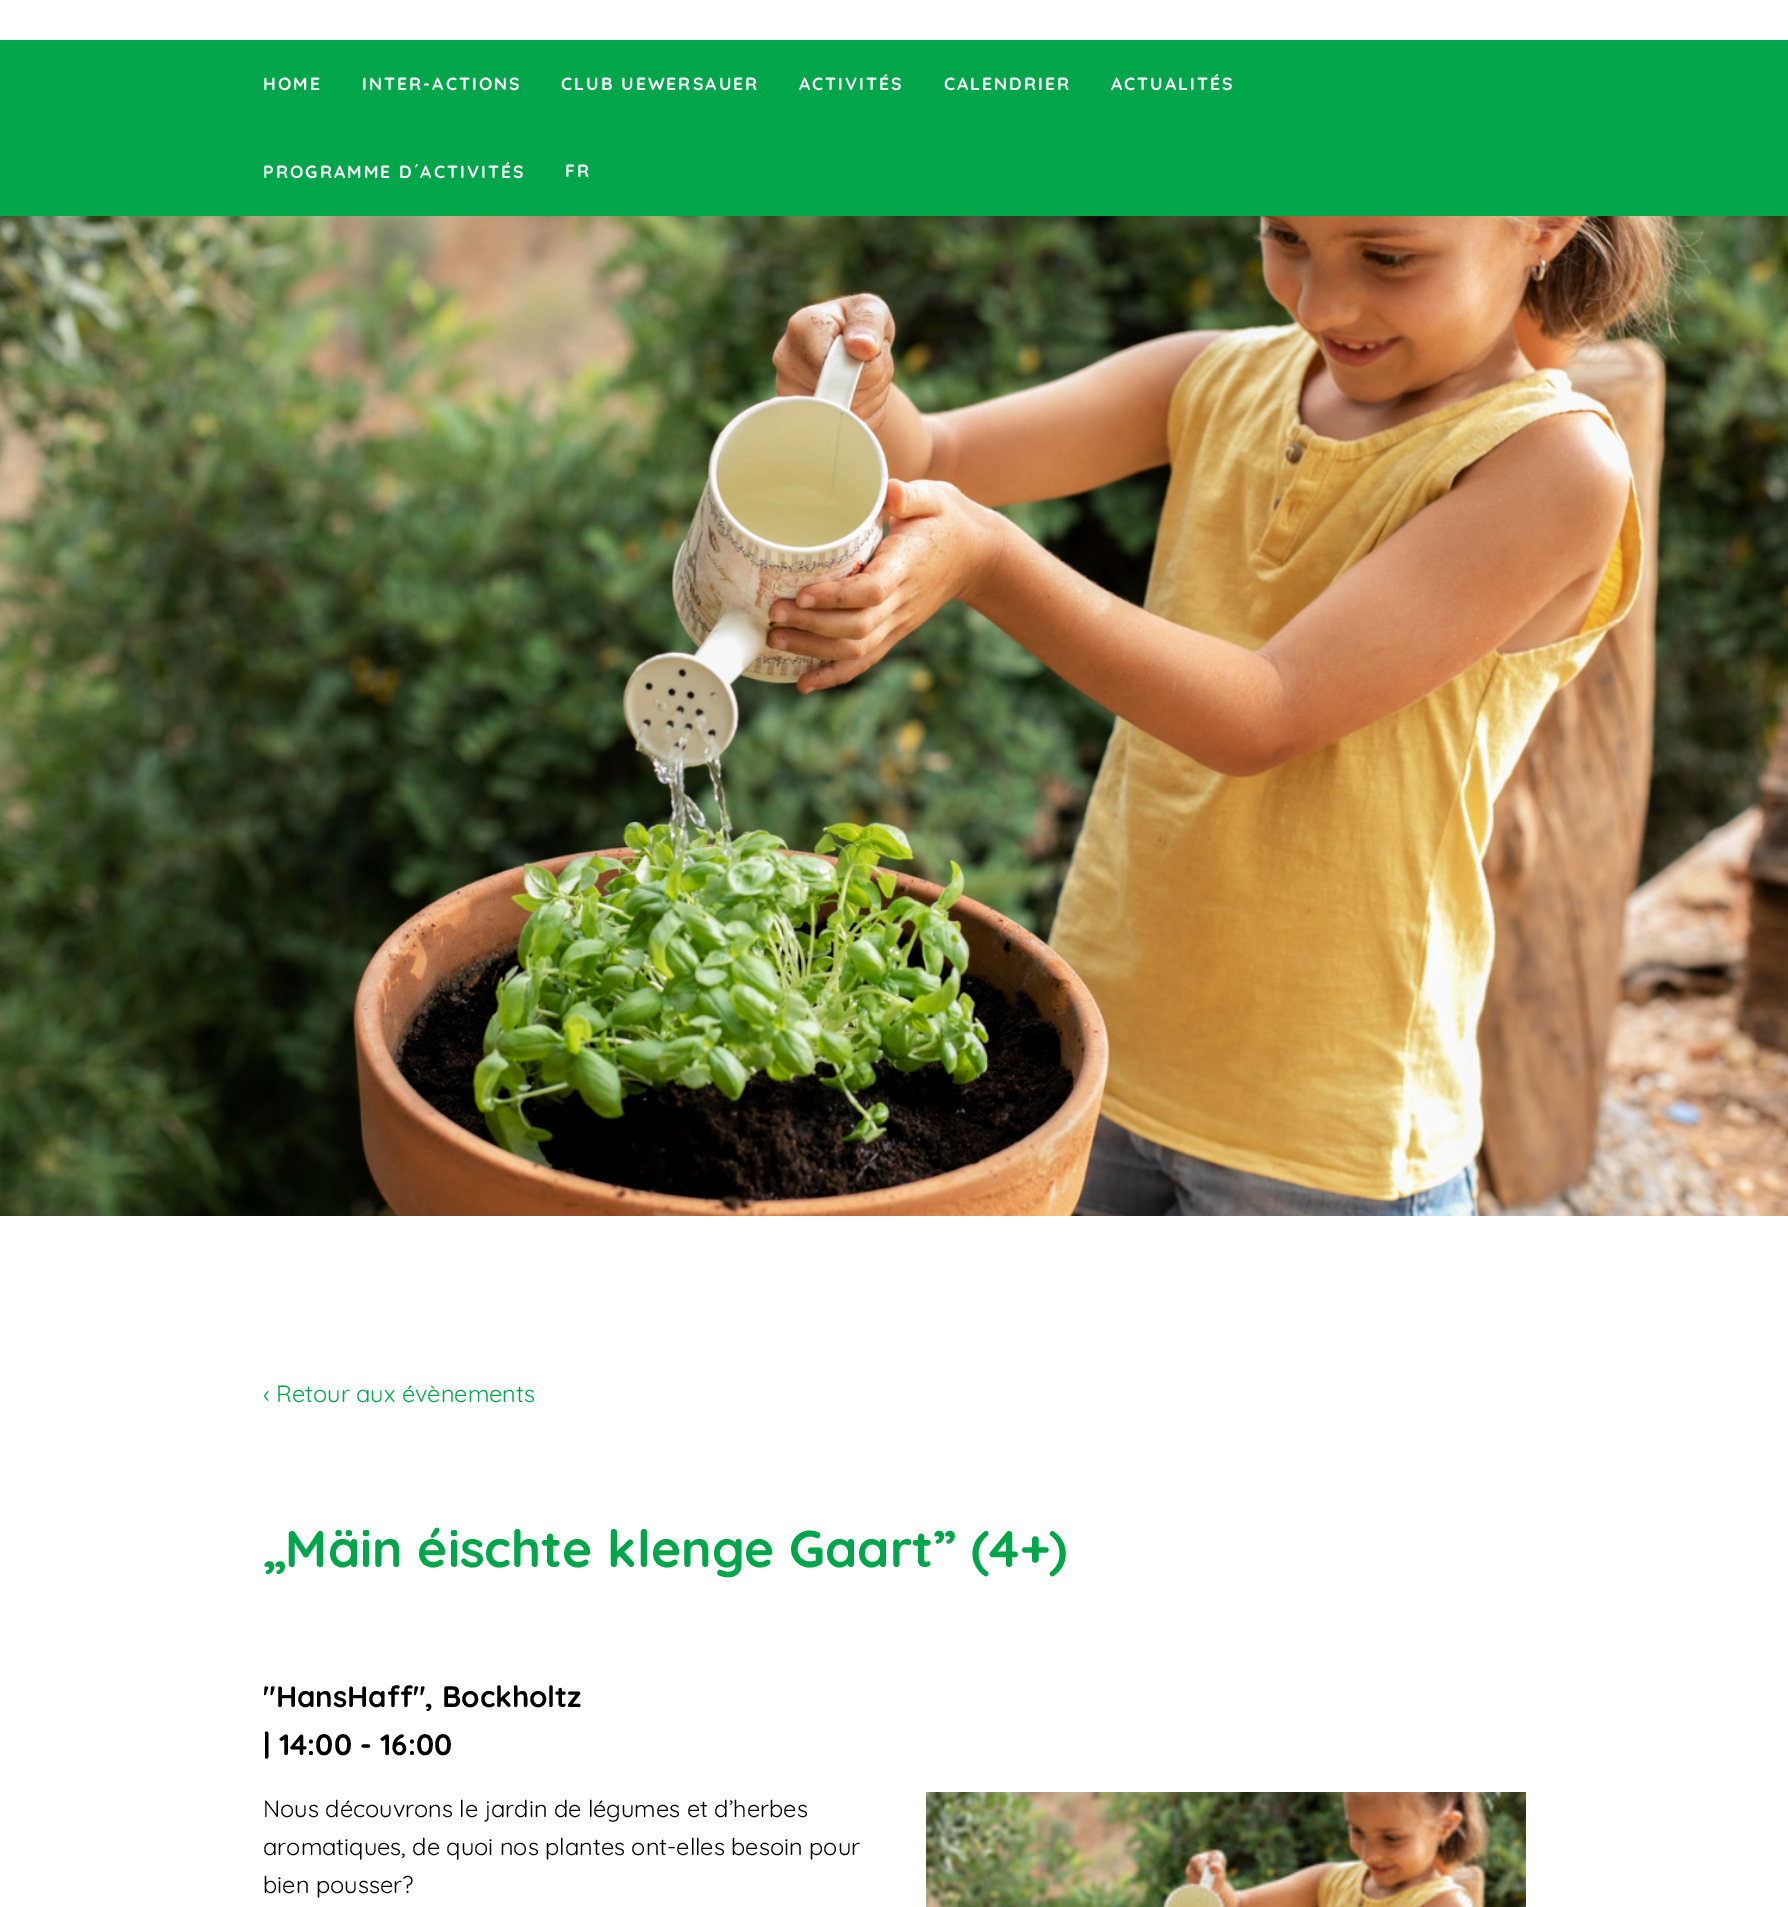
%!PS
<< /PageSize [1788 1907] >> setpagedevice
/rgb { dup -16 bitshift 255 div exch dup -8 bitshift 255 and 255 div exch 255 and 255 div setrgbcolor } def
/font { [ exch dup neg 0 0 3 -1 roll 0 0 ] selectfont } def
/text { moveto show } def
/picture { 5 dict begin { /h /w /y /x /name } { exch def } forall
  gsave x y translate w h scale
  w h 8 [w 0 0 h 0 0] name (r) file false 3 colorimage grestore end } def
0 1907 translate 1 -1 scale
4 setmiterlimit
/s1 { /Quicksand-Regular 23.55 font 16#01A64A rgb } def
/s2 { /Quicksand-Bold 51.5 font 16#01A64A rgb } def
/s3 { /Quicksand-Bold 29.5 font 16#000000 rgb } def
/s4 { /Quicksand-Regular 23.55 font 16#000000 rgb } def
16#FFFFFF rgb
0 0 1788 1907 rectfill
16#01A64A rgb
0 40 1788 176 rectfill
/Quicksand-Bold 17.7 font
16#FFFFFF rgb
263 90 moveto 2 0 (HOME) ashow
362 90 moveto 2 0 (INTER-ACTIONS) ashow
561 90 moveto 2 0 (CLUB UEWERSAUER) ashow
799 90 moveto 2 0 (ACTIVITÉS) ashow
944 90 moveto 2 0 (CALENDRIER) ashow
1111 90 moveto 2 0 (ACTUALITÉS) ashow
263 178 moveto 2 0 (PROGRAMME D´ACTIVITÉS) ashow
565 177 moveto 2 0 (FR) ashow
(pic1.raw) 0 216 1788 1000 picture
s1
(‹ Retour aux évènements) 263 1402 text
s2
(„Mäin éischte klenge Gaart” \(4+\)) 263 1567 text
s3
("HansHaff", Bockholtz) 263 1707 text
(| 14:00 - 16:00) 263 1755 text
s4
(Nous découvrons le jardin de légumes et d’herbes) 263 1817 text
(pic2.raw) 926 1792 600 115 picture
(aromatiques, de quoi nos plantes ont-elles besoin pour) 263 1855 text
(bien pousser?) 263 1893 text
showpage
